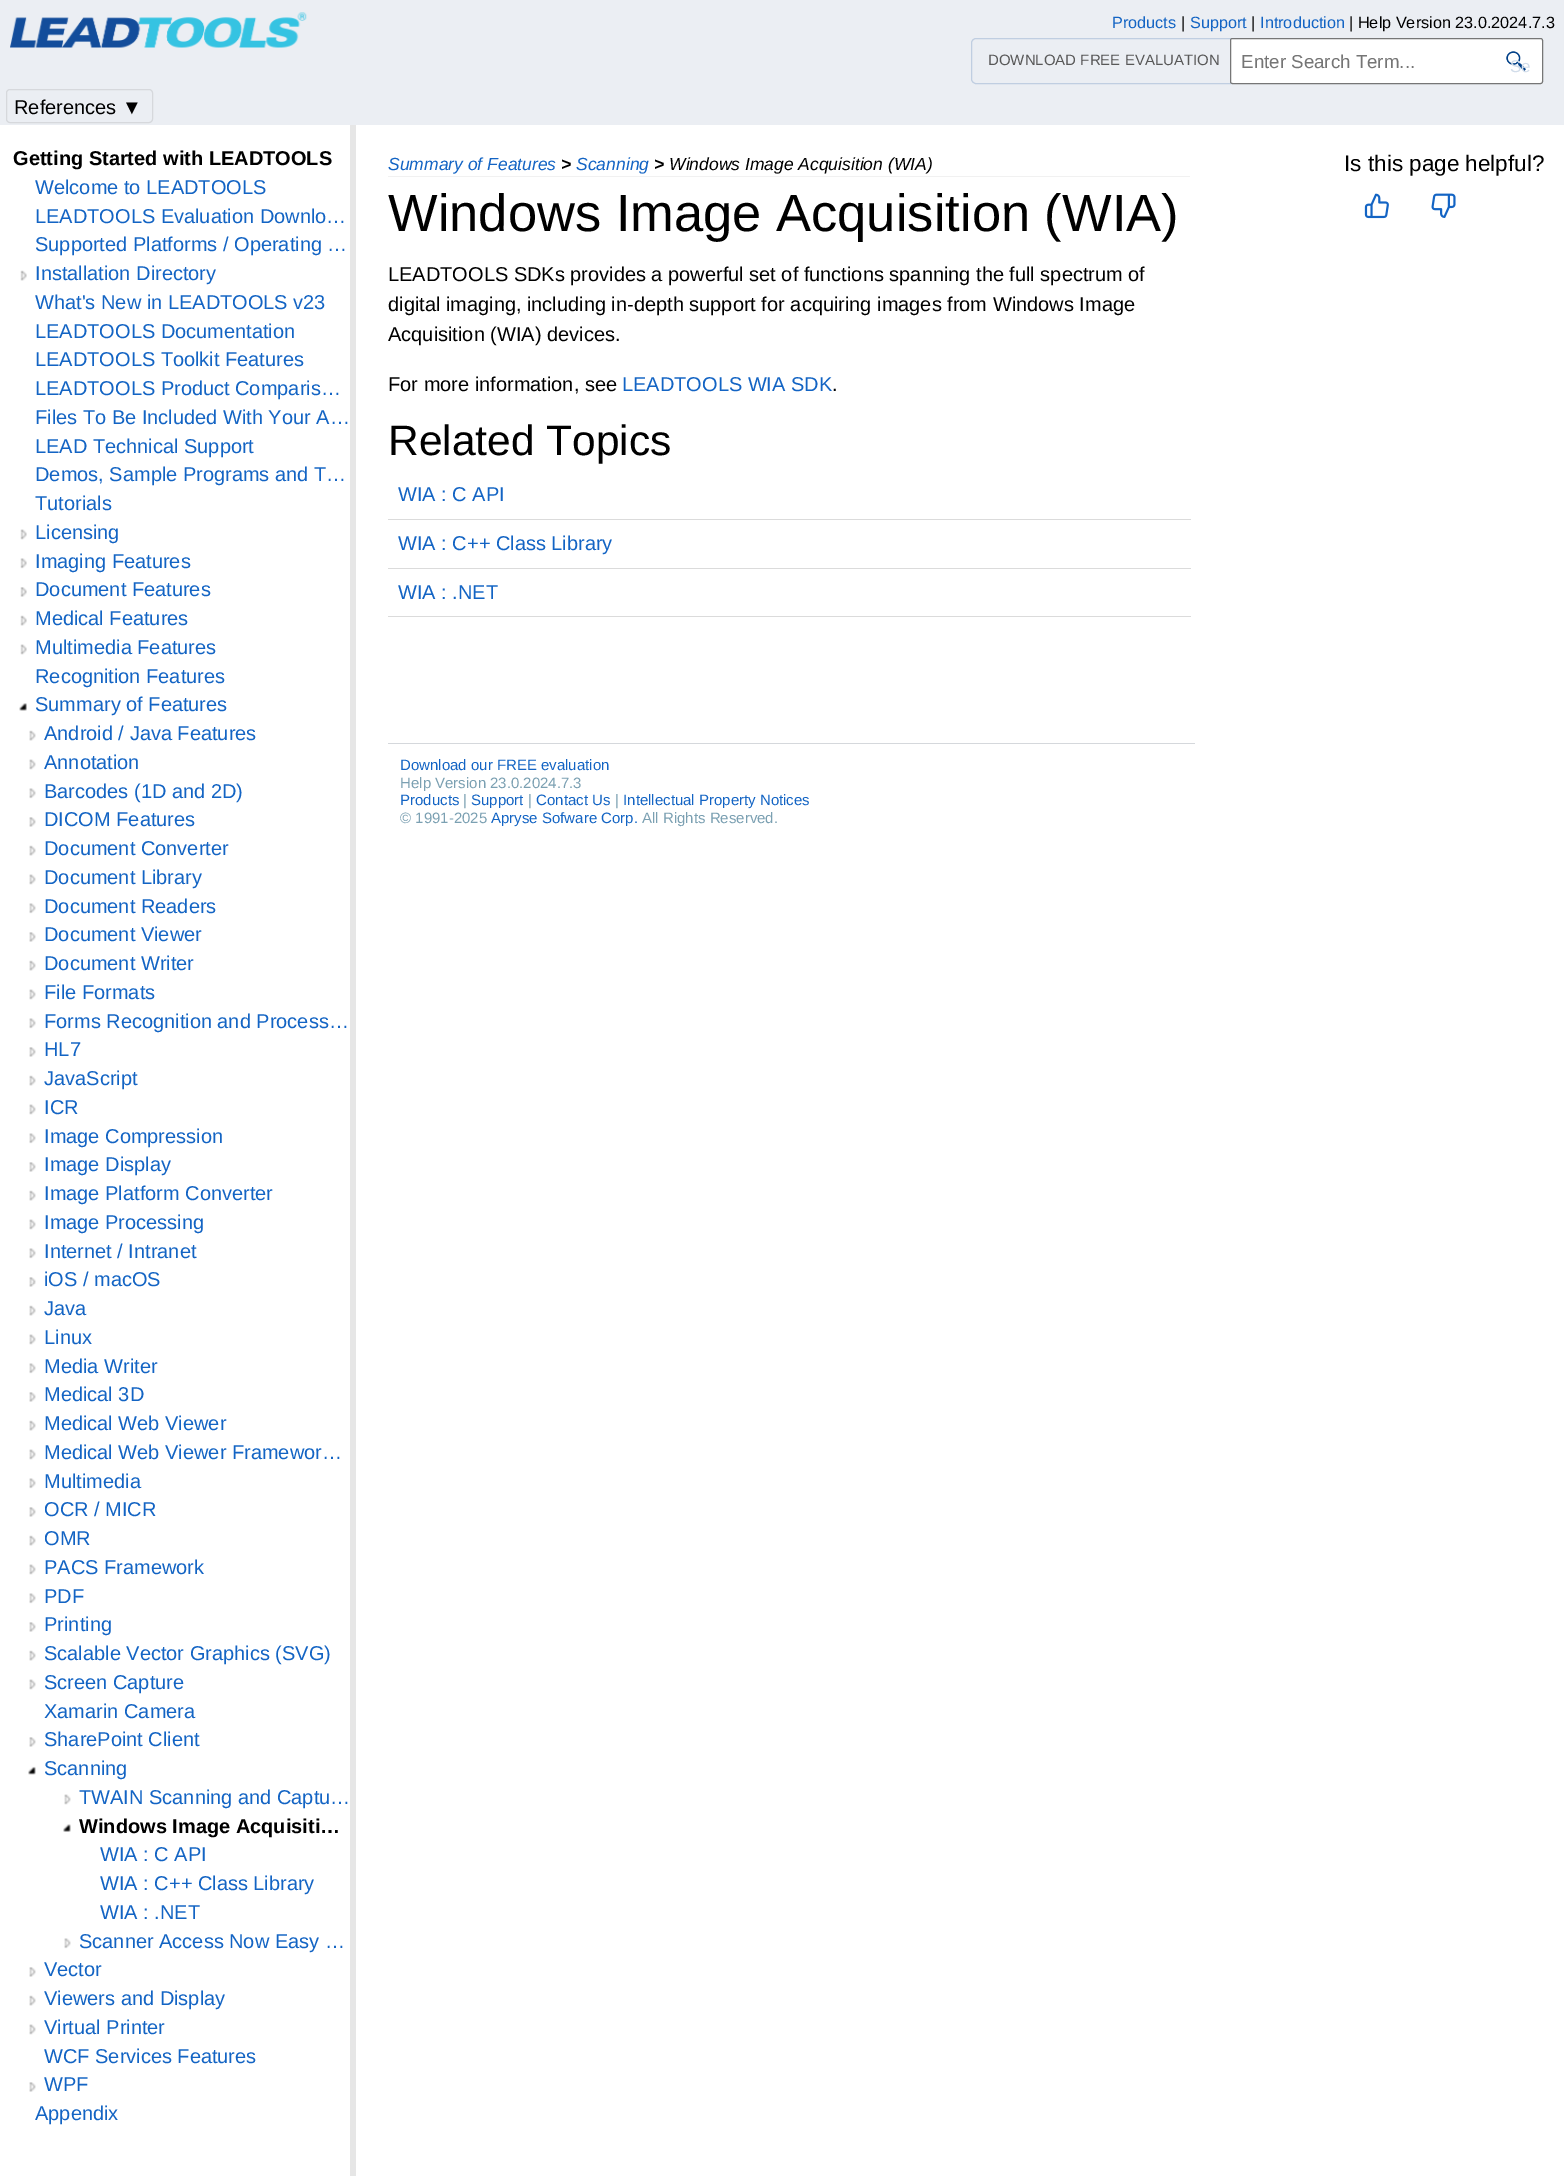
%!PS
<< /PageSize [1564 2176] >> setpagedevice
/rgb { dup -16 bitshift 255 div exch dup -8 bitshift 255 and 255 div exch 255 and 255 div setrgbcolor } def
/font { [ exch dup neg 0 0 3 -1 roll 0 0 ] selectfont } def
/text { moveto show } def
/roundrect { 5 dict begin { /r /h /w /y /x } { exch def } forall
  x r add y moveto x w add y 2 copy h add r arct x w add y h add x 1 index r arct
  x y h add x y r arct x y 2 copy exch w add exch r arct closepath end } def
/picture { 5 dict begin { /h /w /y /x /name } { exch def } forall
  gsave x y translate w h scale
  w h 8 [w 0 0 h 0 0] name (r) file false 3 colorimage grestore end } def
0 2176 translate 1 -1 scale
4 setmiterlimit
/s1 { /LiberationSans-Regular 16.25 font 16#1364C4 rgb } def
/s2 { /LiberationSans-Regular 16.25 font 16#000000 rgb } def
/s3 { /LiberationSans-Regular 15 font 16#585858 rgb } def
/s4 { /LiberationSans-Regular 18.75 font 16#757575 rgb } def
/s5 { /LiberationSans-Regular 17 font 16#D2DDEA rgb } def
/s6 { /LiberationSans-Regular 20 font 16#000000 rgb } def
/s7 { /LiberationSans-Bold 20 font 16#000000 rgb } def
/s8 { /LiberationSans-Regular 20 font 16#1364C4 rgb } def
/s9 { /LiberationSans-Italic 17.5 font 16#1364C4 rgb } def
/s10 { /LiberationSans-BoldItalic 17.5 font 16#000000 rgb } def
/s11 { /LiberationSans-Italic 17.5 font 16#000000 rgb } def
/s12 { /LiberationSans-Regular 22.5 font 16#000000 rgb } def
/s13 { /LiberationSans-Regular 52.5 font 16#000000 rgb } def
/s14 { /LiberationSans-Regular 42.5 font 16#000000 rgb } def
/s15 { /LiberationSans-Regular 15 font 16#1364C4 rgb } def
/s16 { /LiberationSans-Regular 15 font 16#7BA0B2 rgb } def
16#FFFFFF rgb
0 0 1564 2176 rectfill
16#EBEEF3 rgb
0 0 1564 125 rectfill
(pic1.raw) 10 12 297 36 picture
s1
(Products) 1112 28 text
s2
(|) 1181 28 text
s1
(Support) 1190 28 text
s2
(|) 1251 28 text
s1
(Introduction) 1260 28 text
s2
(| Help Version 23.0.2024.7.3) 1349 28 text
16#C0CEE1 rgb
971.5 38.5 264 45 4.5 roundrect stroke
s3
(DOWNLOAD FREE EVALUATION) 988 65 text
16#FFFFFF rgb
1230.5 38.5 312 45 2 roundrect gsave fill grestore
16#767676 rgb
stroke
s4
(Enter Search Term...) 1241 68 text
(pic2.raw) 1506 51 20 20 picture
s5
(Se) 1510 72 text
16#D6D8DC rgb
6.5 89.5 146 33 3.5 roundrect stroke
s6
(References ▼) 14 114 text
16#E6E6E6 rgb
350 125 6 2051 rectfill
s7
(Getting Started with LEADTOOLS) 13 165 text
s8
(Welcome to LEADTOOLS) 35 194 text
(LEADTOOLS Evaluation Downlo…) 35 223 text
(Supported Platforms / Operating …) 35 251 text
(pic3.raw) 20 270 7 11 picture
(Installation Directory) 35 280 text
(What's New in LEADTOOLS v23) 35 309 text
(LEADTOOLS Documentation) 35 338 text
(LEADTOOLS Toolkit Features) 35 366 text
(LEADTOOLS Product Comparis…) 35 395 text
(Files To Be Included With Your A…) 35 424 text
(LEAD Technical Support) 35 453 text
(Demos, Sample Programs and T…) 35 481 text
(Tutorials) 35 510 text
(pic4.raw) 20 529 7 11 picture
(Licensing) 35 539 text
(pic5.raw) 20 558 7 11 picture
(Imaging Features) 35 568 text
(pic6.raw) 20 587 7 10 picture
(Document Features) 35 596 text
(pic3.raw) 20 615 7 11 picture
(Medical Features) 35 625 text
(pic4.raw) 20 644 7 11 picture
(Multimedia Features) 35 654 text
(Recognition Features) 35 683 text
(pic7.raw) 19 703 8 8 picture
(Summary of Features) 35 711 text
(pic8.raw) 29 730 7 11 picture
(Android / Java Features) 44 740 text
(pic9.raw) 29 759 7 11 picture
(Annotation) 44 769 text
(pic10.raw) 29 788 7 11 picture
(Barcodes \(1D and 2D\)) 44 798 text
(pic11.raw) 29 817 7 10 picture
(DICOM Features) 44 826 text
(pic8.raw) 29 845 7 11 picture
(Document Converter) 44 855 text
(pic9.raw) 29 874 7 11 picture
(Document Library) 44 884 text
(pic10.raw) 29 903 7 11 picture
(Document Readers) 44 913 text
(pic11.raw) 29 932 7 10 picture
(Document Viewer) 44 941 text
(pic8.raw) 29 960 7 11 picture
(Document Writer) 44 970 text
(pic9.raw) 29 989 7 11 picture
(File Formats) 44 999 text
(pic10.raw) 29 1018 7 11 picture
(Forms Recognition and Process…) 44 1028 text
(pic11.raw) 29 1047 7 10 picture
(HL7) 44 1056 text
(pic8.raw) 29 1075 7 11 picture
(JavaScript) 44 1085 text
(pic9.raw) 29 1104 7 11 picture
(ICR) 44 1114 text
(pic10.raw) 29 1133 7 11 picture
(Image Compression) 44 1143 text
(pic11.raw) 29 1162 7 10 picture
(Image Display) 44 1171 text
(pic8.raw) 29 1190 7 11 picture
(Image Platform Converter) 44 1200 text
(pic9.raw) 29 1219 7 11 picture
(Image Processing) 44 1229 text
(pic10.raw) 29 1248 7 11 picture
(Internet / Intranet) 44 1258 text
(pic12.raw) 29 1277 7 10 picture
(iOS / macOS) 44 1286 text
(pic8.raw) 29 1305 7 11 picture
(Java) 44 1315 text
(pic9.raw) 29 1334 7 11 picture
(Linux) 44 1344 text
(pic10.raw) 29 1363 7 11 picture
(Media Writer) 44 1373 text
(pic11.raw) 29 1392 7 10 picture
(Medical 3D) 44 1401 text
(pic8.raw) 29 1420 7 11 picture
(Medical Web Viewer) 44 1430 text
(pic9.raw) 29 1449 7 11 picture
(Medical Web Viewer Framewor…) 44 1459 text
(pic10.raw) 29 1478 7 11 picture
(Multimedia) 44 1488 text
(pic11.raw) 29 1507 7 10 picture
(OCR / MICR) 44 1516 text
(pic8.raw) 29 1535 7 11 picture
(OMR) 44 1545 text
(pic9.raw) 29 1564 7 11 picture
(PACS Framework) 44 1574 text
(pic10.raw) 29 1593 7 11 picture
(PDF) 44 1603 text
(pic11.raw) 29 1622 7 10 picture
(Printing) 44 1631 text
(pic8.raw) 29 1650 7 11 picture
(Scalable Vector Graphics \(SVG\)) 44 1660 text
(pic9.raw) 29 1679 7 11 picture
(Screen Capture) 44 1689 text
(Xamarin Camera) 44 1718 text
(pic11.raw) 29 1737 7 10 picture
(SharePoint Client) 44 1746 text
(pic13.raw) 28 1766 8 9 picture
(Scanning) 44 1775 text
(pic9.raw) 64 1794 7 11 picture
(TWAIN Scanning and Captu…) 79 1804 text
(pic14.raw) 63 1824 8 8 picture
s7
(Windows Image Acquisiti…) 79 1833 text
s8
(WIA : C API) 100 1861 text
(WIA : C++ Class Library) 100 1890 text
(WIA : .NET) 100 1919 text
(pic10.raw) 64 1938 7 11 picture
(Scanner Access Now Easy …) 79 1948 text
(pic11.raw) 29 1967 7 10 picture
(Vector) 44 1976 text
(pic8.raw) 29 1995 7 11 picture
(Viewers and Display) 44 2005 text
(pic9.raw) 29 2024 7 11 picture
(Virtual Printer) 44 2034 text
(WCF Services Features) 44 2063 text
(pic11.raw) 29 2082 7 10 picture
(WPF) 44 2091 text
(Appendix) 35 2120 text
16#F1F1F1 rgb
388 176 802 1 rectfill
s9
(Summary of Features) 388 170 text
s10
(>) 561 170 text
s9
(Scanning) 576 170 text
s10
(>) 654 170 text
s11
(Windows Image Acquisition \(WIA\)) 669 170 text
s12
(Is this page helpful?) 1344 171 text
(pic15.raw) 1364 193 25 26 picture
(pic16.raw) 1431 193 25 25 picture
s13
(Windows Image Acquisition \(WIA\)) 388 231 text
s6
(LEADTOOLS SDKs provides a powerful set of functions spanning the full spectrum of) 388 281 text
(digital imaging, including in-depth support for acquiring images from Windows Image) 388 311 text
(Acquisition \(WIA\) devices.) 388 341 text
(For more information, see) 388 391 text
s8
(LEADTOOLS WIA SDK) 622 391 text
s6
(.) 832 391 text
s14
(Related Topics) 388 455 text
16#DBDBDB rgb
388 519 803 1 rectfill
s8
(WIA : C API) 398 501 text
16#DBDBDB rgb
388 568 803 1 rectfill
s8
(WIA : C++ Class Library) 398 550 text
16#DBDBDB rgb
388 616 803 1 rectfill
s8
(WIA : .NET) 398 599 text
16#D5D8DC rgb
388 743 807 1 rectfill
s15
(Download our FREE evaluation) 400 770 text
s16
(Help Version 23.0.2024.7.3) 400 788 text
s15
(Products) 400 805 text
s16
(|) 463 805 text
s15
(Support) 471 805 text
s16
(|) 528 805 text
s15
(Contact Us) 536 805 text
s16
(|) 615 805 text
s15
(Intellectual Property Notices) 623 805 text
s16
(© 1991-2025) 400 823 text
s15
(Apryse Sofware Corp.) 491 823 text
s16
(All Rights Reserved.) 642 823 text
showpage
